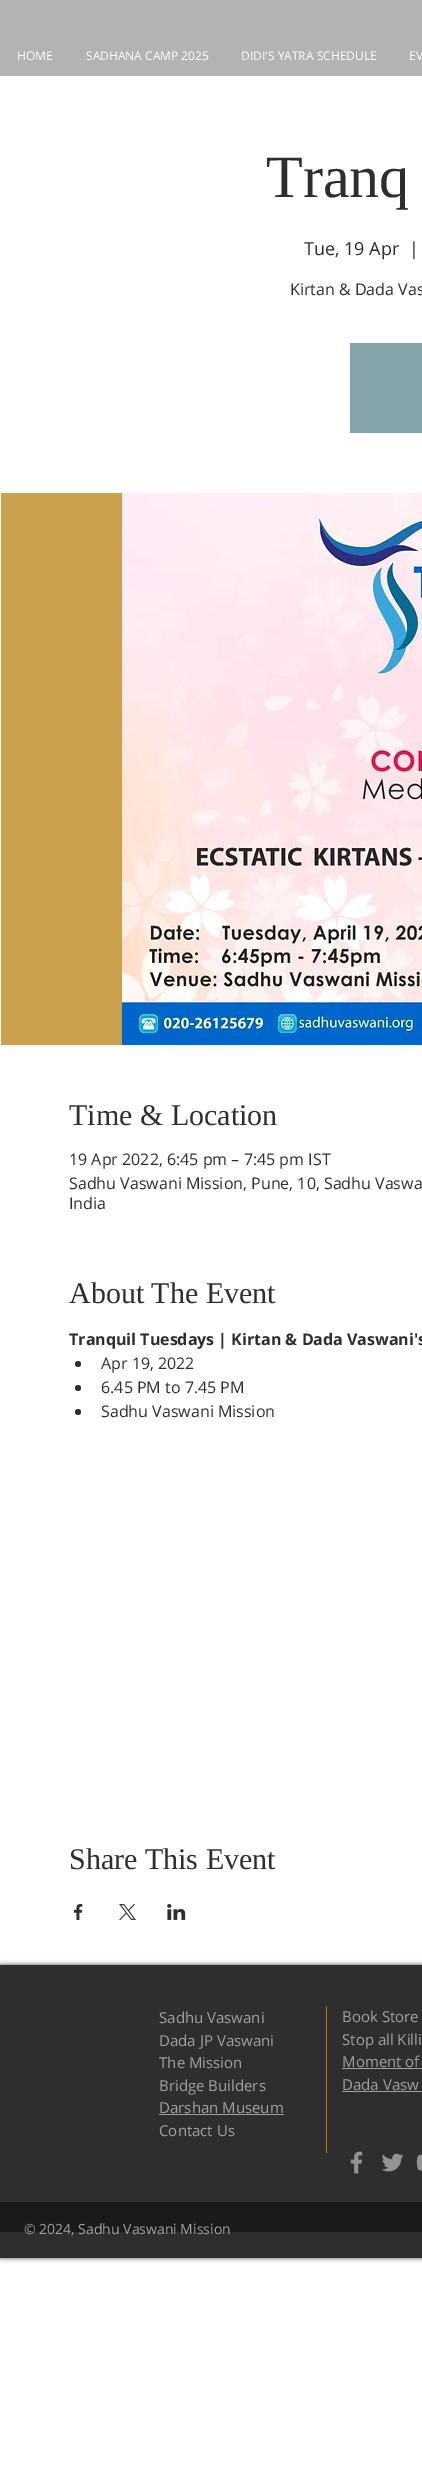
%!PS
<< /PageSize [422 2469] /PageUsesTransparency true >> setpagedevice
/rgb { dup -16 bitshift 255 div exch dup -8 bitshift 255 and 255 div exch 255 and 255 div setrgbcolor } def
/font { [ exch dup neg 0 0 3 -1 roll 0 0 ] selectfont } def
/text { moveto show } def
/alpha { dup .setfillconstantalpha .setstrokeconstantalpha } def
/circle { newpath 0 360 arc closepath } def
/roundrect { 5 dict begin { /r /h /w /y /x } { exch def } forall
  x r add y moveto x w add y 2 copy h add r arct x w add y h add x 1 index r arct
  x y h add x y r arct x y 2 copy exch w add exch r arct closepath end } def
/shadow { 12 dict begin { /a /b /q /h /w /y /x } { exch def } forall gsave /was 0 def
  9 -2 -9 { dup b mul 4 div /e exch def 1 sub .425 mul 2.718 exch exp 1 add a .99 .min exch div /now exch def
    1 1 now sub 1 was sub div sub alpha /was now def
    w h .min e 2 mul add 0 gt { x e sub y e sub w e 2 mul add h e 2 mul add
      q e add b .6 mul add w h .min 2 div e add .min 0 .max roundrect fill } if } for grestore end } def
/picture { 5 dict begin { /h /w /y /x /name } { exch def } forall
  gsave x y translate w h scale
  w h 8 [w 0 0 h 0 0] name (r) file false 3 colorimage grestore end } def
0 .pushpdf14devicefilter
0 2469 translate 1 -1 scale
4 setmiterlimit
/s1 { /OpenSans-Regular 12 font 16#FFFFFF rgb } def
/s2 { /LiberationSerif-Regular 60 font 16#2F2E2E rgb } def
/s3 { /OpenSans-Regular 18 font 16#2F2E2E rgb } def
/s4 { /OpenSans-Regular 16 font 16#2F2E2E rgb } def
/s5 { /LiberationSerif-Regular 30 font 16#2F2E2E rgb } def
/s6 { /OpenSans-Bold 16 font 16#2F2E2E rgb } def
/s7 { /OpenSans-Regular 15 font 16#A0A09F rgb } def
/s8 { /OpenSans-Regular 14 font 16#A0A09F rgb } def
16#FFFFFF rgb
0 0 422 2469 rectfill
16#B3B3B3 rgb
0 0 422 76 rectfill
s1
(HOME) 17 60 text
(SADHANA CAMP 2025) 86 60 text
(DIDI'S YATRA SCHEDULE) 241 60 text
(EV) 409 60 text
s2
(Tranq) 266 197 text
s3
(Tue, 19 Apr) 304 255 text
(|) 409 255 text
s4
(Kirtan & Dada Vas) 290 295 text
16#84A4A9 rgb
350 343 72 90 rectfill
16#CAA04D rgb
1 493 121 552 rectfill
(pic1.raw) 122 493 300 552 picture
s5
(Time & Location) 69 1125 text
s4
(19 Apr 2022, 6:45 pm – 7:45 pm IST) 69 1165 text
(Sadhu Vaswani Mission, Pune, 10, Sadhu Vaswa) 69 1189 text
(India) 69 1209 text
s5
(About The Event) 69 1303 text
s6
(Tranquil Tuesdays | Kirtan & Dada Vaswani's) 69 1345 text
78 1364 3 circle fill
s4
(Apr 19, 2022) 101 1369 text
78 1388 3 circle fill
(6.45 PM to 7.45 PM) 101 1393 text
78 1412 3 circle fill
(Sadhu Vaswani Mission) 101 1417 text
s5
(Share This Event) 69 1869 text
(pic2.raw) 74 1904 9 16 picture
(pic3.raw) 119 1904 17 16 picture
(pic4.raw) 167 1904 19 16 picture
16#000000 rgb
0 1965 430 293 0 2.5 0.7 shadow
16#2F2E2E rgb
0 1965 422 293 rectfill
s7
(Sadhu Vaswani) 159 2023 text
(Dada JP Vaswani) 159 2046 text
(The Mission) 159 2068 text
(Bridge Builders) 159 2091 text
(Darshan Museum) 159 2113 text
159 2114 125 1 rectfill
(Contact Us) 159 2136 text
16#B37700 rgb
326 2006 1 147 rectfill
s7
(Book Store) 342 2022 text
(Stop all Killi) 342 2045 text
(Moment of) 342 2067 text
342 2068 80 1 rectfill
(Dada Vasw) 342 2090 text
342 2091 80 1 rectfill
(pic5.raw) 350 2151 13 23 picture
(pic6.raw) 381 2153 23 19 picture
(pic7.raw) 416 2154 6 17 picture
16#1B1A1A rgb
0 2202 422 30 rectfill
s8
(© 2024, Sadhu Vaswani Mission) 24 2234 text
.poppdf14devicefilter showpage
